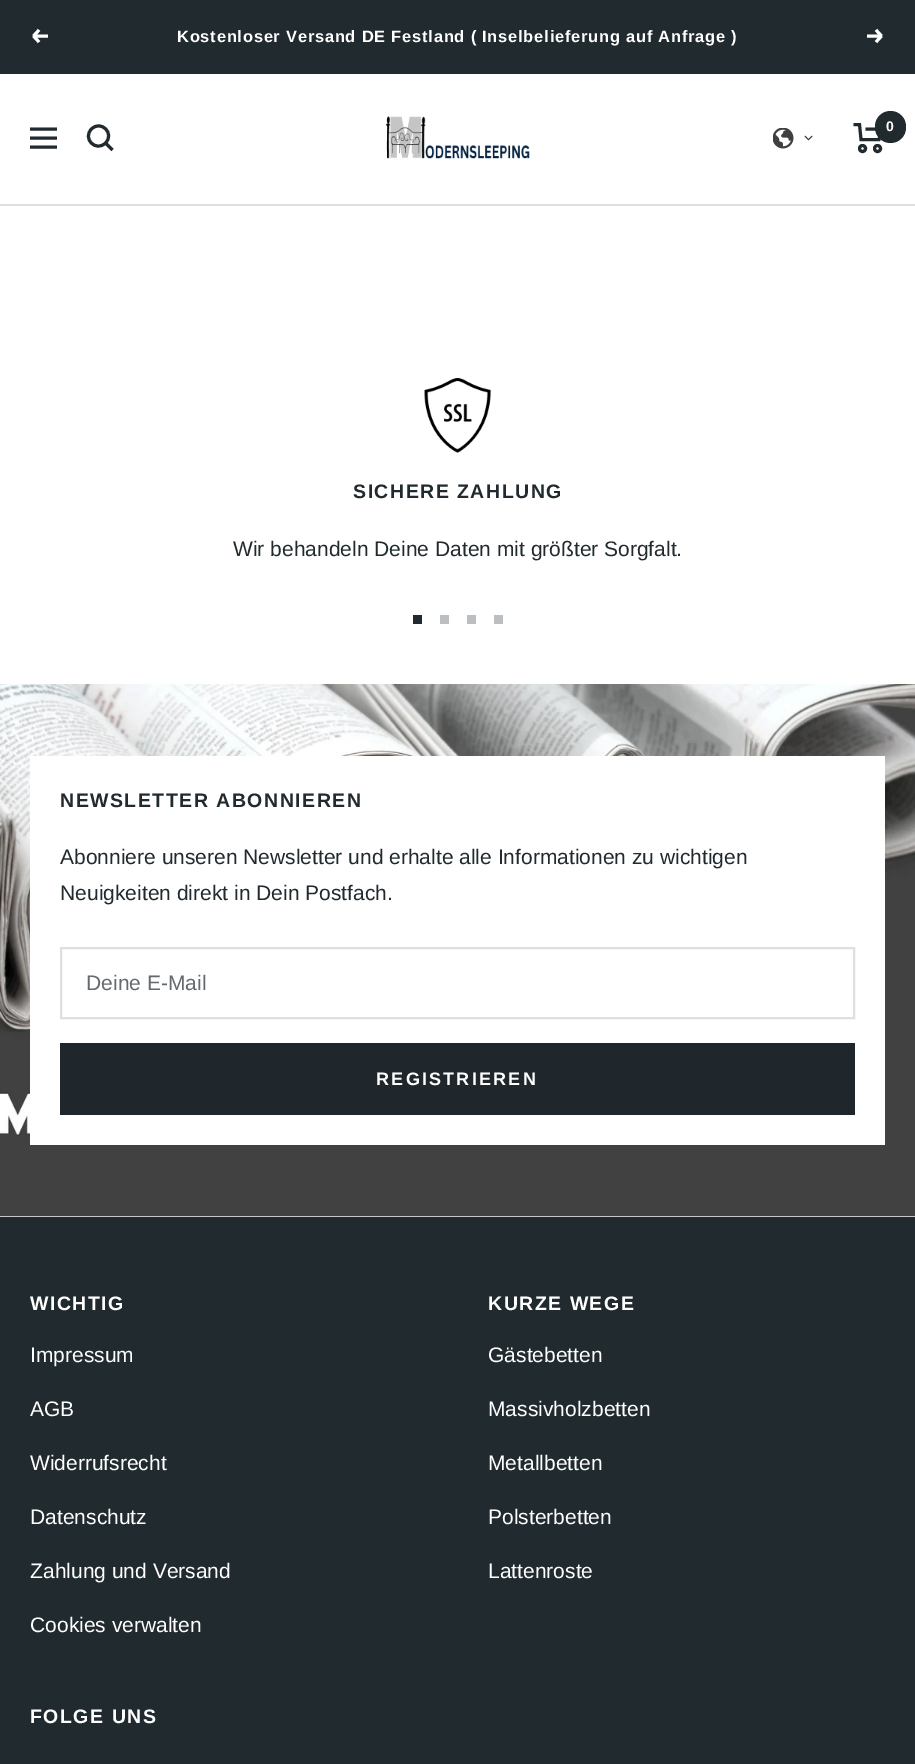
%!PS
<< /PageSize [915 1764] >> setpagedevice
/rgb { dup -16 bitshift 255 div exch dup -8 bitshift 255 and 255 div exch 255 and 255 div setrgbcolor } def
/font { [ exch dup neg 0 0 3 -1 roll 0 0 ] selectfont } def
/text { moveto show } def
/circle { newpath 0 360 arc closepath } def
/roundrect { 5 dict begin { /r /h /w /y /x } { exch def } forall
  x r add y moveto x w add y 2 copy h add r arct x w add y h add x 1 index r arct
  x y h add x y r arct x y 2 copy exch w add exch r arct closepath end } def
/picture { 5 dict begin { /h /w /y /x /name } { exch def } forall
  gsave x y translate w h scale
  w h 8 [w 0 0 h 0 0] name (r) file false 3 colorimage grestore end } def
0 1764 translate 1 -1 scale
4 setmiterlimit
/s1 { /LiberationSans-Bold 14 font 16#FFFFFF rgb } def
/s2 { /LiberationSans-Regular 21 font 16#212A2F rgb } def
/s3 { /LiberationSans-Regular 21 font 16#646A6D rgb } def
/s4 { /LiberationSans-Regular 21 font 16#FFFFFF rgb } def
16#FFFFFF rgb
0 0 915 1764 rectfill
16#212A2F rgb
0 0 915 74 rectfill
16#FFFFFF rgb
3 setlinewidth
48 36 moveto 33.5 36 lineto 33.5 36 moveto 39 42 lineto 33.5 36 moveto 39 30 lineto stroke
/LiberationSans-Bold 16.5 font
177 42 moveto 0.75 0 (Kostenloser Versand DE Festland \( Inselbelieferung auf Anfrage \)) ashow
867 36 moveto 881.5 36 lineto 881.5 36 moveto 876 42 lineto 881.5 36 moveto 876 30 lineto stroke
16#DEDFE0 rgb
0 204 915 2 rectfill
16#212A2F rgb
30 129 moveto 57 129 lineto 30 147 moveto 57 147 lineto closepath 30 138 moveto 57 138 lineto closepath stroke
105.5 143 moveto 115 133.5 101 119.5 91.5 129 curveto 82 138.5 96 152.5 105.5 143 curveto closepath 105.5 143 moveto 112.5 150 lineto stroke
(pic1.raw) 385 116 145 43 picture
853.5 124.5 moveto 859.5 124.5 lineto 861 139.5 lineto 879 139.5 lineto 882 129 lineto 865.5 129 lineto stroke
862.5 148.5 3 circle stroke
877.5 148.5 3 circle stroke
875 111 31 32 15.5 roundrect fill
s1
(0) 886 131 text
(pic2.raw) 773 128 21 21 picture
(pic3.raw) 804 135 9 6 picture
(pic4.raw) 424 378 67 75 picture
/LiberationSans-Bold 19.5 font
16#212A2F rgb
353 498 moveto 1.5 0 (SICHERE ZAHLUNG) ashow
s2
(Wir behandeln Deine Daten mit größter Sorgfalt.) 233 556 text
413 615 9 9 rectfill
16#BCBFC1 rgb
440 615 9 9 rectfill
467 615 9 9 rectfill
494 615 9 9 rectfill
16#F5F5F5 rgb
0 1216 915 1 rectfill
(pic5.raw) 0 684 915 533 picture
16#FFFFFF rgb
30 756 855 389 rectfill
/LiberationSans-Bold 19.5 font
16#212A2F rgb
60 807 moveto 1.5 0 (NEWSLETTER ABONNIEREN) ashow
s2
(Abonniere unseren Newsletter und erhalte alle Informationen zu wichtigen) 60 864 text
(Neuigkeiten direkt in Dein Postfach.) 60 900 text
16#DEDFE0 rgb
2 setlinewidth
61 948 793 70 rectstroke
s3
(Deine E-Mail) 86 990 text
gsave 60 1043 moveto 855 1043 lineto 855 1115 lineto 60 1115 lineto closepath clip newpath
<< /ShadingType 2 /ColorSpace /DeviceRGB /Coords [455 957 460 1128] /Extend [true true] /Function << /FunctionType 3 /Domain [0 1] /Functions [<< /FunctionType 2 /Domain [0 1] /C0 [0.129 0.165 0.184] /C1 [0.129 0.165 0.184] /N 1 >> << /FunctionType 2 /Domain [0 1] /C0 [0.122 0.153 0.173] /C1 [0.122 0.153 0.173] /N 1 >>] /Bounds [0.1] /Encode [0 1 0 1] >> >> shfill grestore
/LiberationSans-Bold 18 font
16#FFFFFF rgb
376 1085 moveto 2.25 0 (REGISTRIEREN) ashow
16#212A2F rgb
0 1217 915 547 rectfill
/LiberationSans-Bold 19.5 font
16#FFFFFF rgb
30 1310 moveto 1.5 0 (WICHTIG) ashow
s4
(Impressum) 30 1362 text
(AGB) 30 1416 text
(Widerrufsrecht) 30 1470 text
(Datenschutz) 30 1524 text
(Zahlung und Versand) 30 1578 text
(Cookies verwalten) 30 1632 text
/LiberationSans-Bold 19.5 font
488 1310 moveto 1.5 0 (KURZE WEGE) ashow
s4
(Gästebetten) 488 1362 text
(Massivholzbetten) 488 1416 text
(Metallbetten) 488 1470 text
(Polsterbetten) 488 1524 text
(Lattenroste) 488 1578 text
/LiberationSans-Bold 19.5 font
30 1723 moveto 1.5 0 (FOLGE UNS) ashow
showpage
